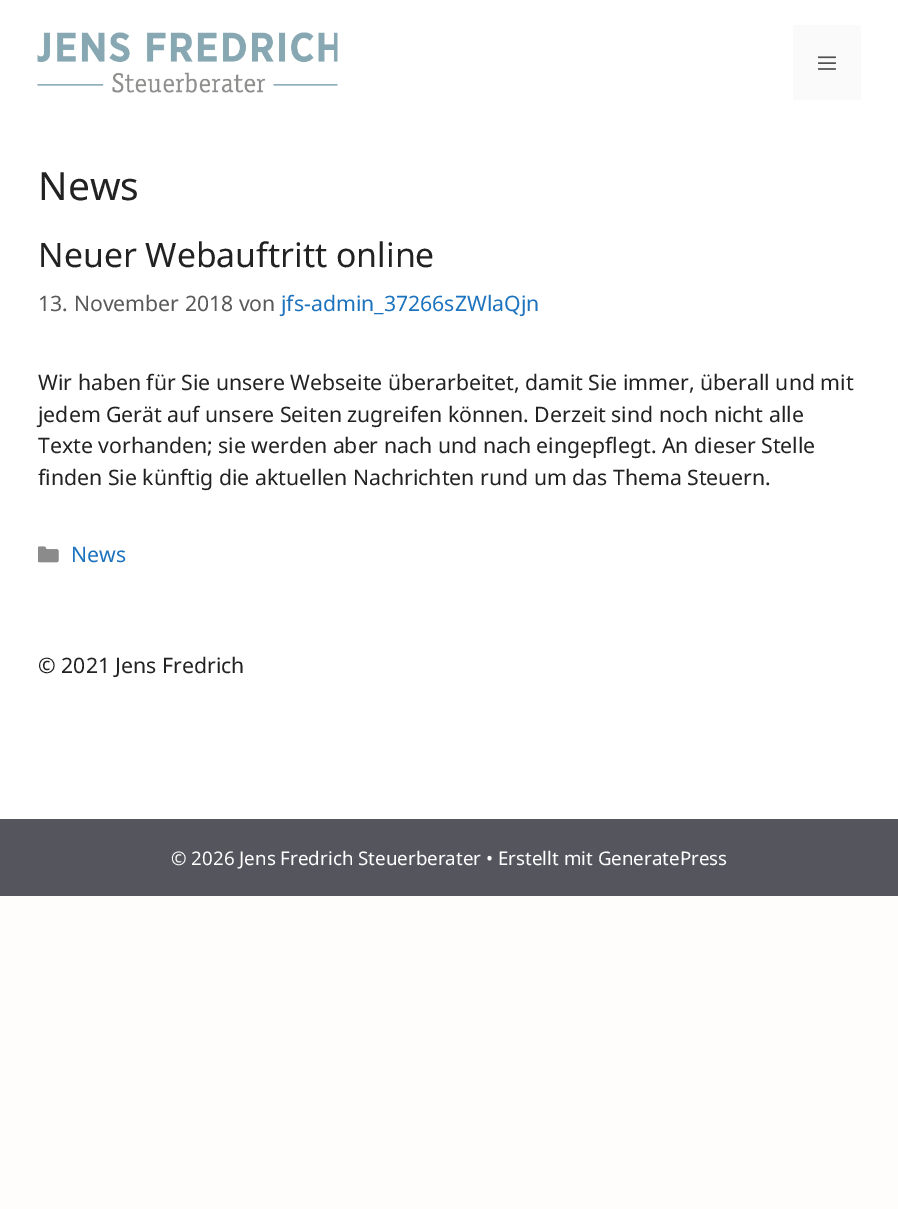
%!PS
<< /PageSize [898 1209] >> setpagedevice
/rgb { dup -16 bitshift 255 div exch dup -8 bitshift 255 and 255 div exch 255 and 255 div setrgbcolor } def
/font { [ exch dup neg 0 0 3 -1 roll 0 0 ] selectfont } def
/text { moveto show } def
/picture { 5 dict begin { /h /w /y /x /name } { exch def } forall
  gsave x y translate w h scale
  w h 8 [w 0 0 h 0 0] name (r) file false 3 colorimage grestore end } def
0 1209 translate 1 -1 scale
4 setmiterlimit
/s1 { /NotoSans-Regular 39 font 16#222222 rgb } def
/s2 { /NotoSans-Regular 33.75 font 16#222222 rgb } def
/s3 { /NotoSans-Regular 21.25 font 16#595959 rgb } def
/s4 { /NotoSans-Regular 21.25 font 16#1E73BE rgb } def
/s5 { /NotoSans-Regular 21.25 font 16#222222 rgb } def
/s6 { /NotoSans-Regular 18.75 font 16#FFFFFF rgb } def
16#FFFCFC rgb
0 0 898 1209 rectfill
16#FFFFFF rgb
0 0 898 819 rectfill
(pic1.raw) 37 32 301 61 picture
16#FAFAFA rgb
793 25 68 75 rectfill
(pic2.raw) 818 56 18 14 picture
s1
(News) 38 200 text
s2
(Neuer Webauftritt online) 38 267 text
s3
(13. November 2018 von) 38 311 text
s4
(jfs-admin_37266sZWlaQjn) 281 311 text
s5
(Wir haben für Sie unsere Webseite überarbeitet, damit Sie immer, überall und mit) 38 390 text
(jedem Gerät auf unsere Seiten zugreifen können. Derzeit sind noch nicht alle) 38 422 text
(Texte vorhanden; sie werden aber nach und nach eingepflegt. An dieser Stelle) 38 453 text
(finden Sie künftig die aktuellen Nachrichten rund um das Thema Steuern.) 38 485 text
(pic3.raw) 38 546 21 17 picture
s4
(News) 71 562 text
s5
(© 2021 Jens Fredrich) 38 673 text
16#55555E rgb
0 819 898 77 rectfill
s6
(© 2026 Jens Fredrich Steuerberater • Erstellt mit GeneratePress) 171 865 text
showpage
